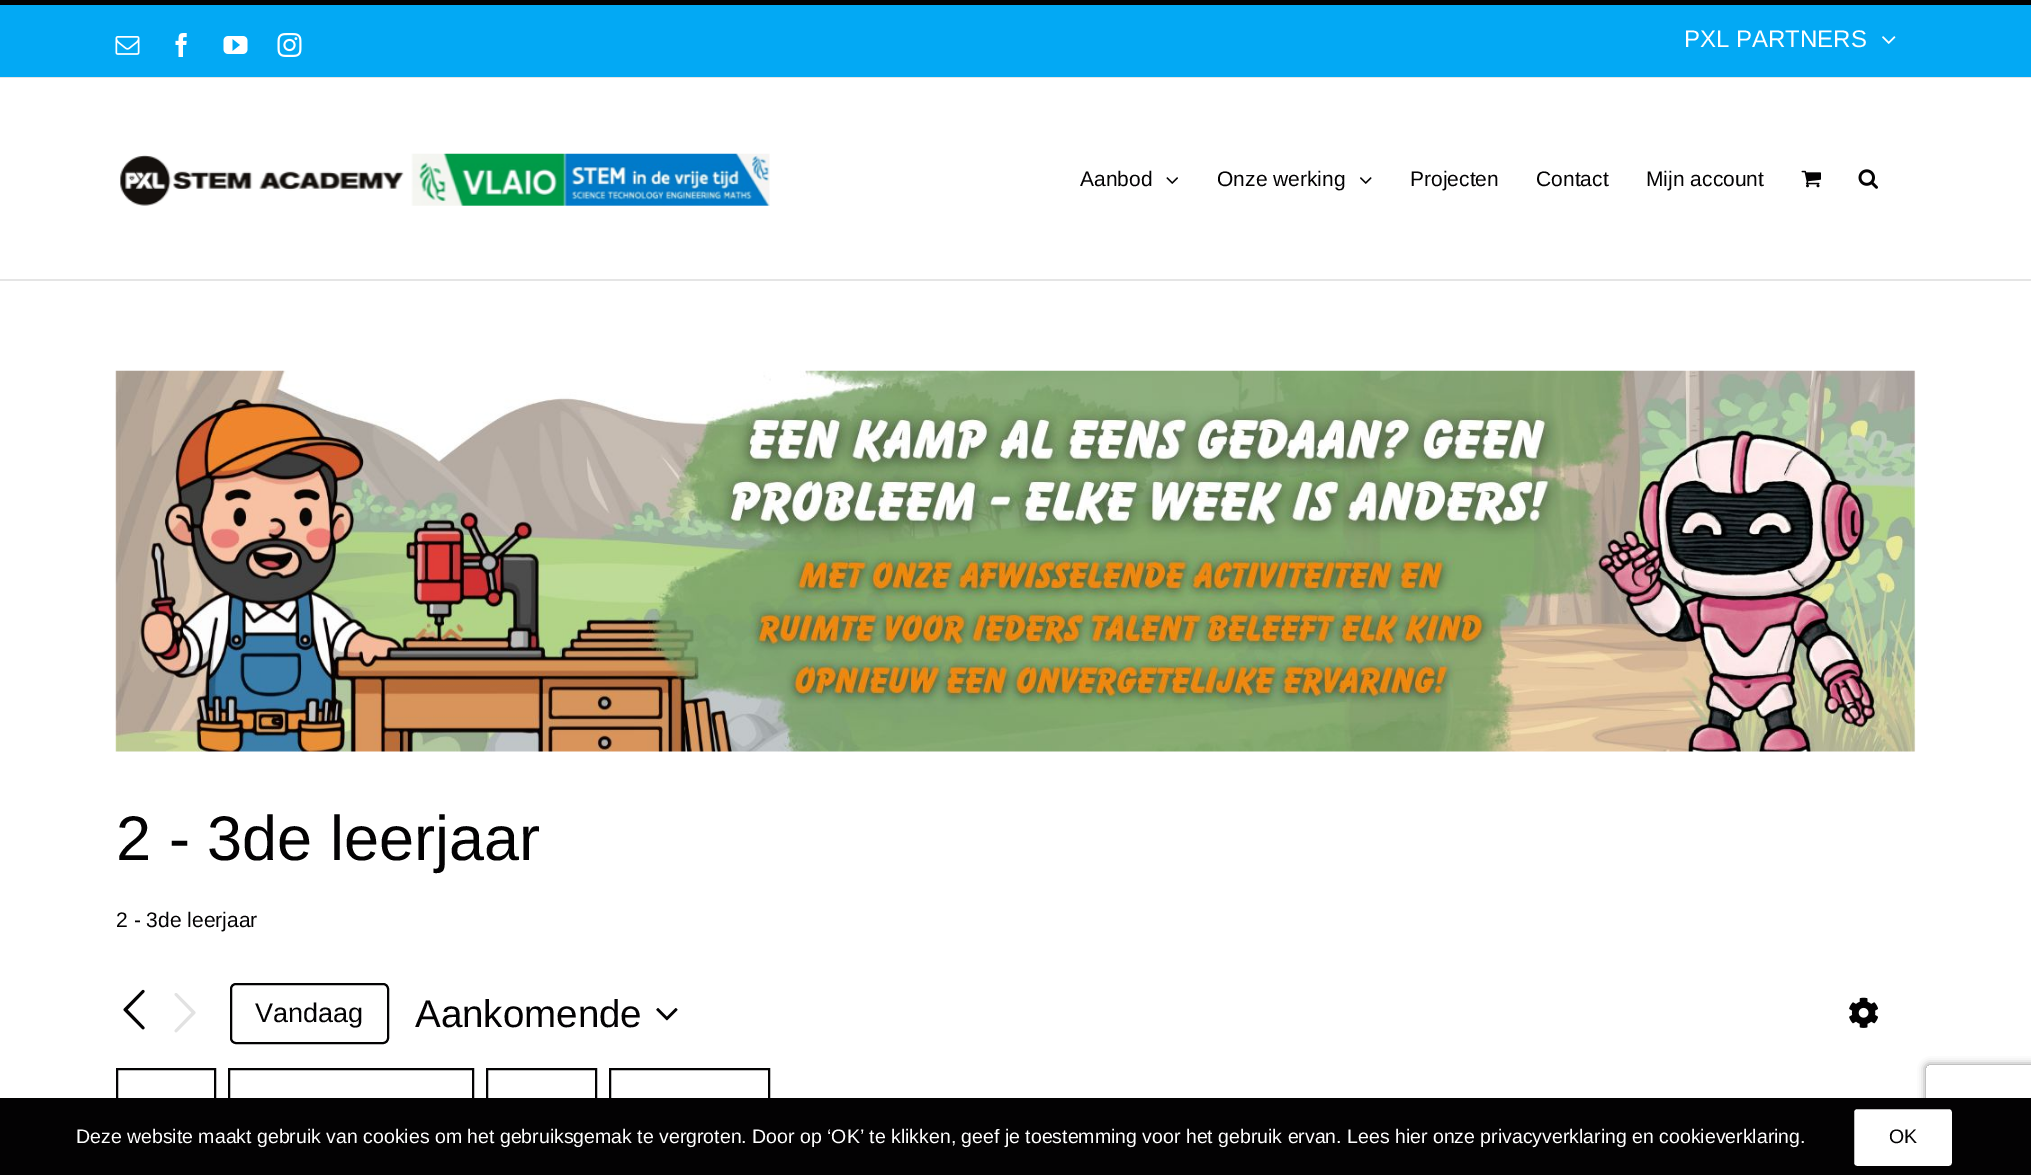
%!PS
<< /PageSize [2031 1175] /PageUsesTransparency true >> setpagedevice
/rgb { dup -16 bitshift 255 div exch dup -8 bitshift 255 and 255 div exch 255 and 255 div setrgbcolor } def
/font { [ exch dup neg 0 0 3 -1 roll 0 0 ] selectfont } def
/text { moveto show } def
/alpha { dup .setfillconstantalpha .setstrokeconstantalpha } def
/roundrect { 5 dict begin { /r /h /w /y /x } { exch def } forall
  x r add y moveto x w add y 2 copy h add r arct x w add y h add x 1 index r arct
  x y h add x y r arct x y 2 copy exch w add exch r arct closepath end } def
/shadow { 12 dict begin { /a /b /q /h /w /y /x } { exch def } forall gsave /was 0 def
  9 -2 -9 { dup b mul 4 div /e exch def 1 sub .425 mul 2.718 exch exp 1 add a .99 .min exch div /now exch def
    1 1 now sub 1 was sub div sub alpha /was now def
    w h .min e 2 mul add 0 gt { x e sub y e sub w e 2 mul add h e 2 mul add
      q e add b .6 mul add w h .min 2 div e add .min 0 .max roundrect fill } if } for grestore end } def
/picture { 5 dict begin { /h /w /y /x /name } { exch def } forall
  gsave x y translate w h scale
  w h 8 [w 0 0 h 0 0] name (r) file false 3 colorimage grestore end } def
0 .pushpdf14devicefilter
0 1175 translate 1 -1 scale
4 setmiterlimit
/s1 { /LiberationSans-Regular 24 font 16#FFFFFF rgb } def
/s2 { /LiberationSans-Regular 21 font 16#030203 rgb } def
/s3 { /LiberationSans-Regular 63 font 16#030203 rgb } def
/s4 { /LiberationSans-Regular 27 font 16#030203 rgb } def
/s5 { /LiberationSans-Regular 38.5 font 16#030203 rgb } def
/s6 { /LiberationSans-Regular 19.5 font 16#FFFFFF rgb } def
/s7 { /LiberationSans-Regular 19.5 font 16#030203 rgb } def
16#FFFFFF rgb
0 0 2031 1175 rectfill
16#03A9F4 rgb
0 5 2031 72 rectfill
16#030203 rgb
0 0 2031 5 rectfill
16#E5E5E5 rgb
0 77 2031 1 rectfill
(pic1.raw) 115 36 25 19 picture
(pic2.raw) 175 33 12 24 picture
(pic3.raw) 223 36 25 18 picture
(pic4.raw) 277 33 25 24 picture
s1
(PXL PARTNERS) 1684 47 text
(pic5.raw) 1882 36 14 8 picture
16#E5E5E5 rgb
0 279 2031 2 rectfill
(pic6.raw) 120 153 650 53 picture
s2
(Aanbod) 1080 186 text
(pic7.raw) 1166 177 12 7 picture
(Onze werking) 1217 186 text
(pic8.raw) 1360 177 12 7 picture
(Projecten) 1410 186 text
(Contact) 1536 186 text
(Mijn account) 1646 186 text
(pic9.raw) 1801 170 20 18 picture
(pic10.raw) 1858 169 20 20 picture
(pic11.raw) 115 370 1801 382 picture
s3
(2 - 3de leerjaar) 116 860 text
s2
(2 - 3de leerjaar) 116 927 text
(pic12.raw) 123 989 22 41 picture
(pic13.raw) 174 993 22 40 picture
2 setlinewidth
231 984 157 59 5 roundrect stroke
s4
(Vandaag) 255 1022 text
s5
(Aankomende) 415 1027 text
(pic14.raw) 656 1008 22 13 picture
(pic15.raw) 1849 997 29 31 picture
117 1069 98 52 rectstroke
229 1069 244 52 rectstroke
487 1069 109 52 rectstroke
610 1069 159 52 rectstroke
gsave
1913 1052 moveto 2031 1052 lineto 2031 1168 lineto 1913 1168 lineto closepath 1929 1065 moveto 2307 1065 lineto 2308.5 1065 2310 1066.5 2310 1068 curveto 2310 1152 lineto 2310 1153.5 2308.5 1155 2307 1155 curveto 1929 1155 lineto 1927.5 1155 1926 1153.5 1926 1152 curveto 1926 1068 lineto 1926 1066.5 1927.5 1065 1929 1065 curveto closepath eoclip newpath
16#808080 rgb
1926 1065 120 90 3 4 1 shadow
grestore
0 1098 2031 77 rectfill
s6
(Deze website maakt gebruik van cookies om het gebruiksgemak te vergroten. Door op ‘OK’ te klikken, geef je toestemming voor het gebruik ervan. Lees hier onze privacyverklaring en cookieverklaring.) 76 1143 text
1852.5 1107.5 101 60 4.5 roundrect gsave fill grestore
16#030203 rgb
3 setlinewidth
stroke
(OK) 1889 1143 text
.poppdf14devicefilter showpage
